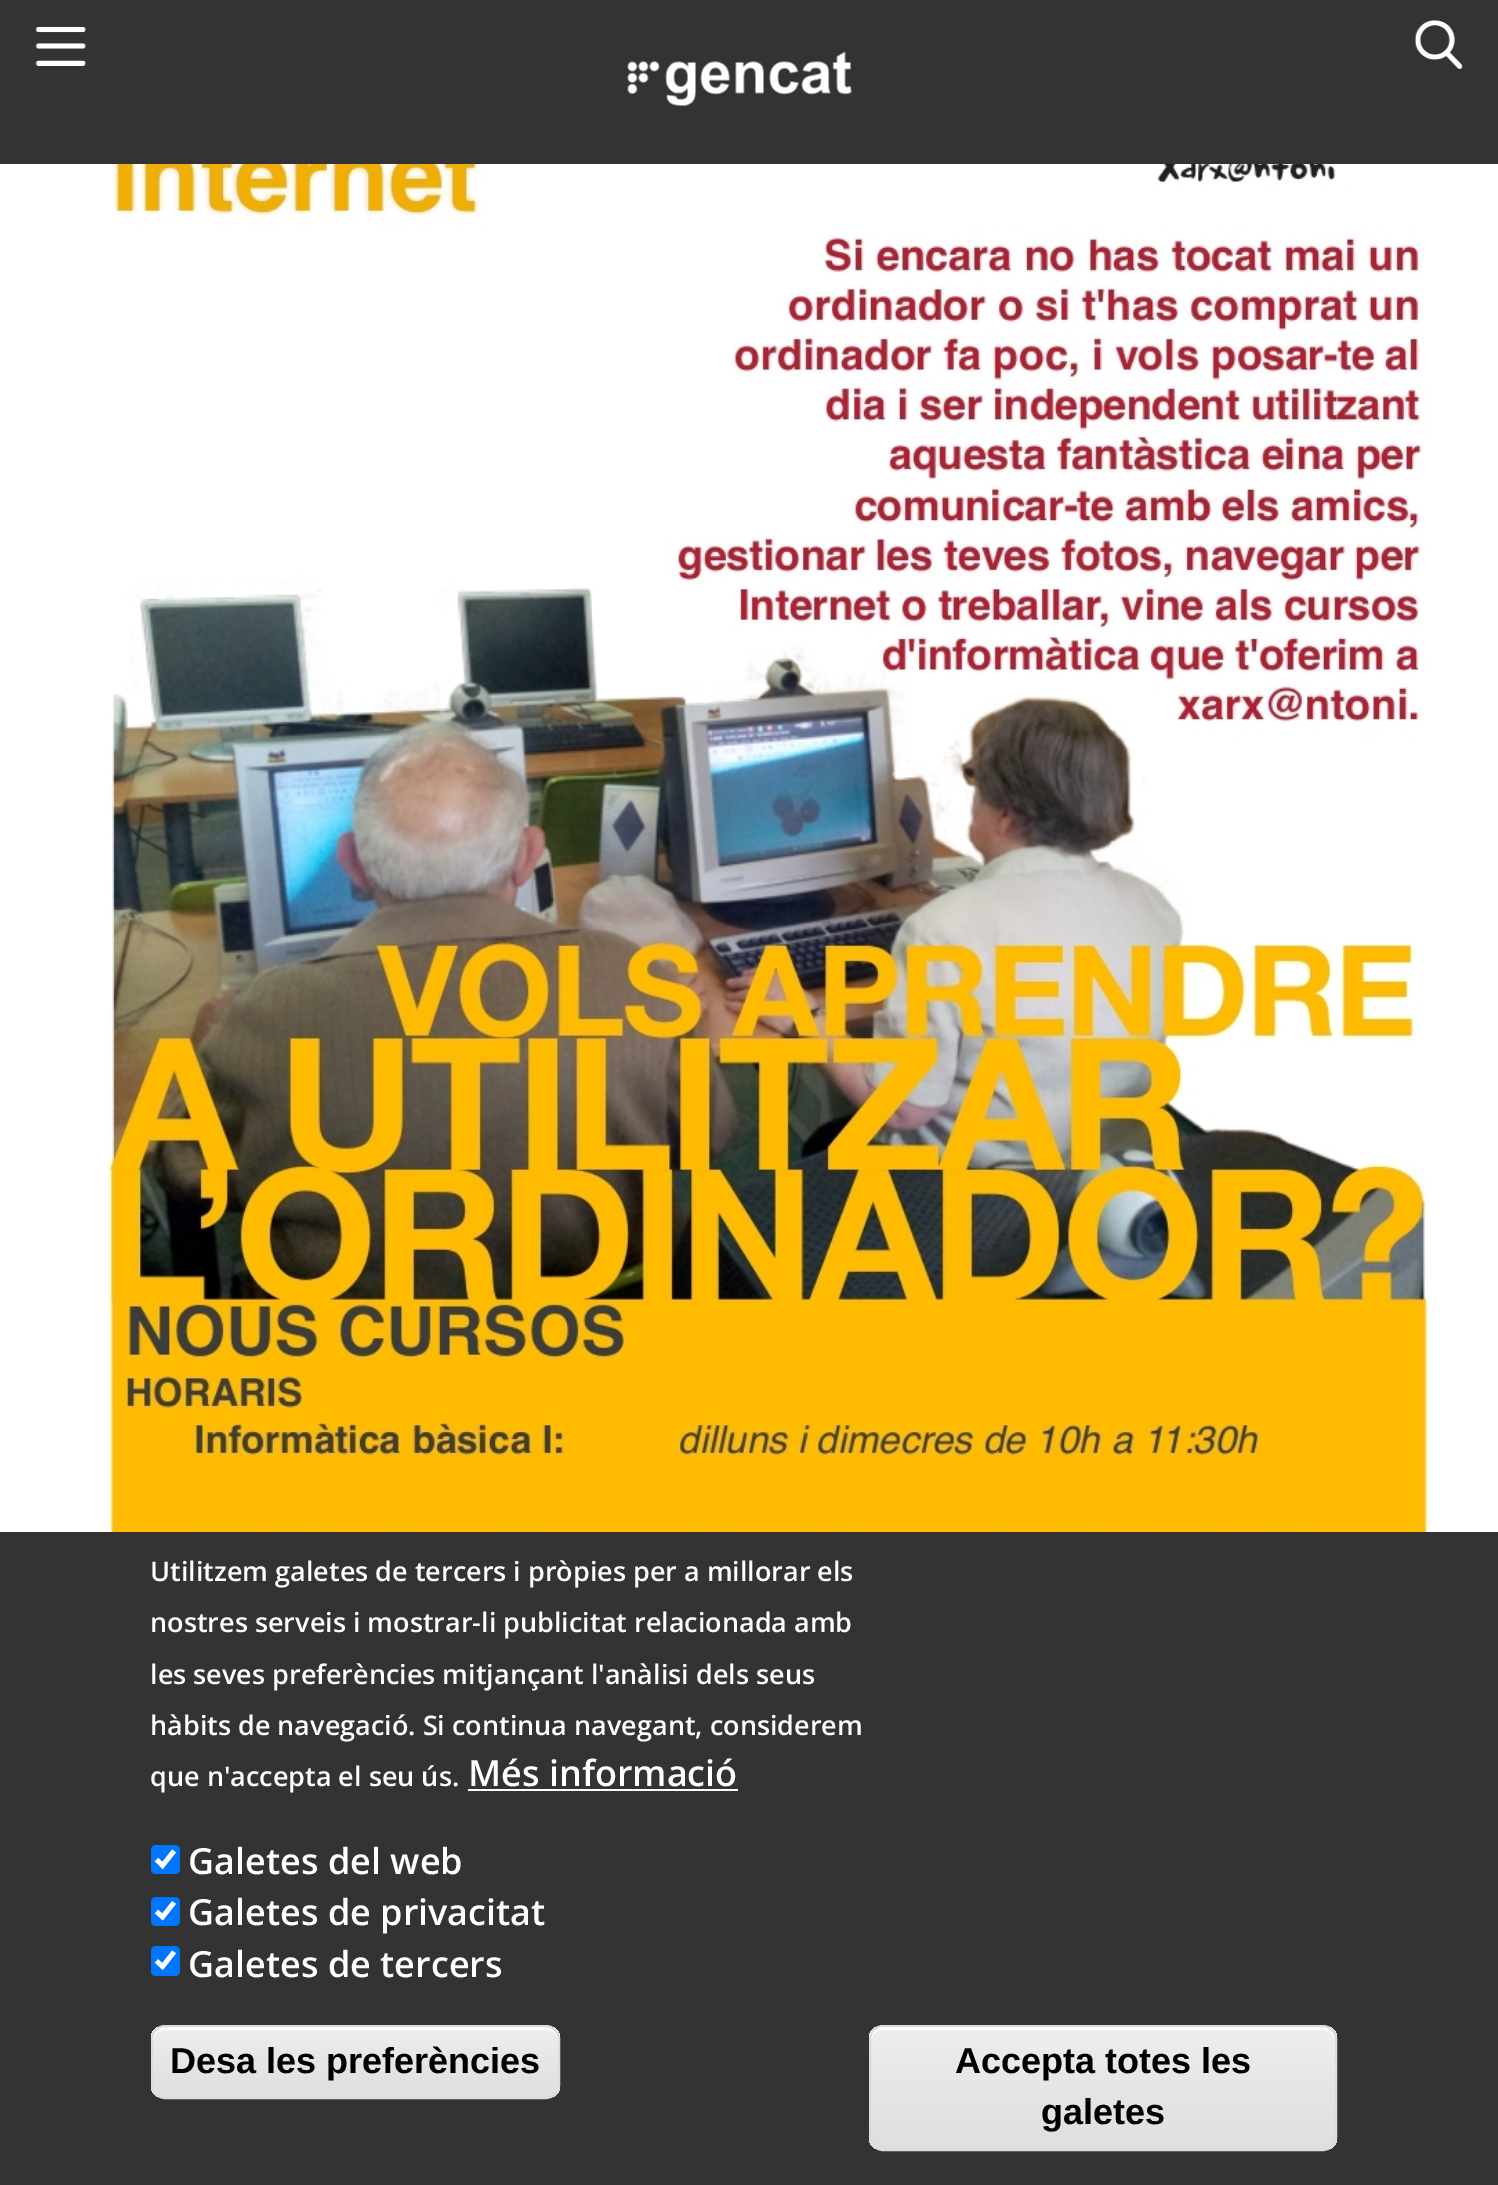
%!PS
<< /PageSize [1498 2185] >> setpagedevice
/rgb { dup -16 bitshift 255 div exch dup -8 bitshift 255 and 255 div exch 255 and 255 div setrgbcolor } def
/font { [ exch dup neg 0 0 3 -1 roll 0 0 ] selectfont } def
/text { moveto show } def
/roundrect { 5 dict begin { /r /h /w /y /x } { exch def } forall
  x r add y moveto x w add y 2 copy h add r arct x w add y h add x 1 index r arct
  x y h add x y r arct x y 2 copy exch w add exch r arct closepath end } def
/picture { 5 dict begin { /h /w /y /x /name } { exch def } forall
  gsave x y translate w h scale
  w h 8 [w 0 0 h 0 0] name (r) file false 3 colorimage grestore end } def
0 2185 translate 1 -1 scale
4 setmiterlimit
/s1 { /OpenSans-SemiBold 27 font 16#FFFFFF rgb } def
/s2 { /OpenSans-SemiBold 36 font 16#FFFFFF rgb } def
/s3 { /LiberationSans-Bold 36 font 16#000000 rgb } def
16#FFFFFF rgb
0 0 1498 2185 rectfill
16#333333 rgb
0 0 1498 164 rectfill
(pic1.raw) 35 26 51 40 picture
(pic2.raw) 627 51 225 55 picture
(pic3.raw) 1414 20 49 49 picture
(pic4.raw) 107 164 1322 1368 picture
0 1532 1498 653 rectfill
s1
(Utilitzem galetes de tercers i pròpies per a millorar els) 150 1581 text
(nostres serveis i mostrar-li publicitat relacionada amb) 150 1632 text
(les seves preferències mitjançant l'anàlisi dels seus) 150 1684 text
(hàbits de navegació. Si continua navegant, considerem) 150 1735 text
(que n'accepta el seu ús.) 150 1786 text
s2
(Més informació) 468 1786 text
468 1789 270 2 rectfill
16#0075FF rgb
151 1845 29 29 5 roundrect fill
16#FFFFFF rgb
4.7 setlinewidth
156.5 1859.5 moveto 162.5 1865.5 lineto 174 1851 lineto stroke
(Galetes del web) 188 1874 text
16#0075FF rgb
151 1897 29 29 5 roundrect fill
16#FFFFFF rgb
156.5 1911.5 moveto 162.5 1917 lineto 174 1902.5 lineto stroke
(Galetes de privacitat) 188 1925 text
16#0075FF rgb
151 1946 29 30 5 roundrect fill
16#FFFFFF rgb
156.5 1961 moveto 162.5 1966.5 lineto 174 1952 lineto stroke
(Galetes de tercers) 188 1977 text
gsave
151 2025 409 74 14 roundrect clip newpath
gsave 151 2027 moveto 560 2027 lineto 560 2097 lineto 151 2097 lineto closepath clip newpath
<< /ShadingType 2 /ColorSpace /DeviceRGB /Coords [356 2027 356 2097] /Extend [true true] /Function << /FunctionType 3 /Domain [0 1] /Functions [<< /FunctionType 2 /Domain [0 1] /C0 [0.929 0.929 0.929] /C1 [0.929 0.929 0.929] /N 1 >> << /FunctionType 2 /Domain [0 1] /C0 [0.929 0.929 0.929] /C1 [0.875 0.875 0.875] /N 1 >>] /Bounds [0.05] /Encode [0 1 0 1] >> >> shfill grestore
grestore
164 2030 moveto 547 2030 lineto 553 2030 558 2035 558 2041 curveto 558 2038 lineto 558 2032 553 2027 547 2027 curveto 164 2027 lineto 158 2027 153 2032 153 2038 curveto 153 2041 lineto 153 2035 158 2030 164 2030 curveto closepath fill
16#DCDCDC rgb
2 setlinewidth
152 2026 407 72 13 roundrect stroke
s3
(Desa les preferències) 170 2073 text
gsave
869 2025 468 126 14 roundrect clip newpath
gsave 869 2027 moveto 1337 2027 lineto 1337 2149 lineto 869 2149 lineto closepath clip newpath
<< /ShadingType 2 /ColorSpace /DeviceRGB /Coords [1103 2027 1103 2149] /Extend [true true] /Function << /FunctionType 3 /Domain [0 1] /Functions [<< /FunctionType 2 /Domain [0 1] /C0 [0.929 0.929 0.929] /C1 [0.929 0.929 0.929] /N 1 >> << /FunctionType 2 /Domain [0 1] /C0 [0.929 0.929 0.929] /C1 [0.875 0.875 0.875] /N 1 >>] /Bounds [0.05] /Encode [0 1 0 1] >> >> shfill grestore
grestore
16#FFFFFF rgb
882 2030 moveto 1323 2030 lineto 1329 2030 1334 2035 1334 2041 curveto 1334 2035 1332 2029 1325 2027 curveto 880 2027 lineto 873 2029 871 2035 871 2041 curveto 871 2035 876 2030 882 2030 curveto closepath fill
16#DCDCDC rgb
870 2026 466 124 13 roundrect stroke
s3
(Accepta totes les) 955 2073 text
(galetes) 1041 2124 text
showpage
